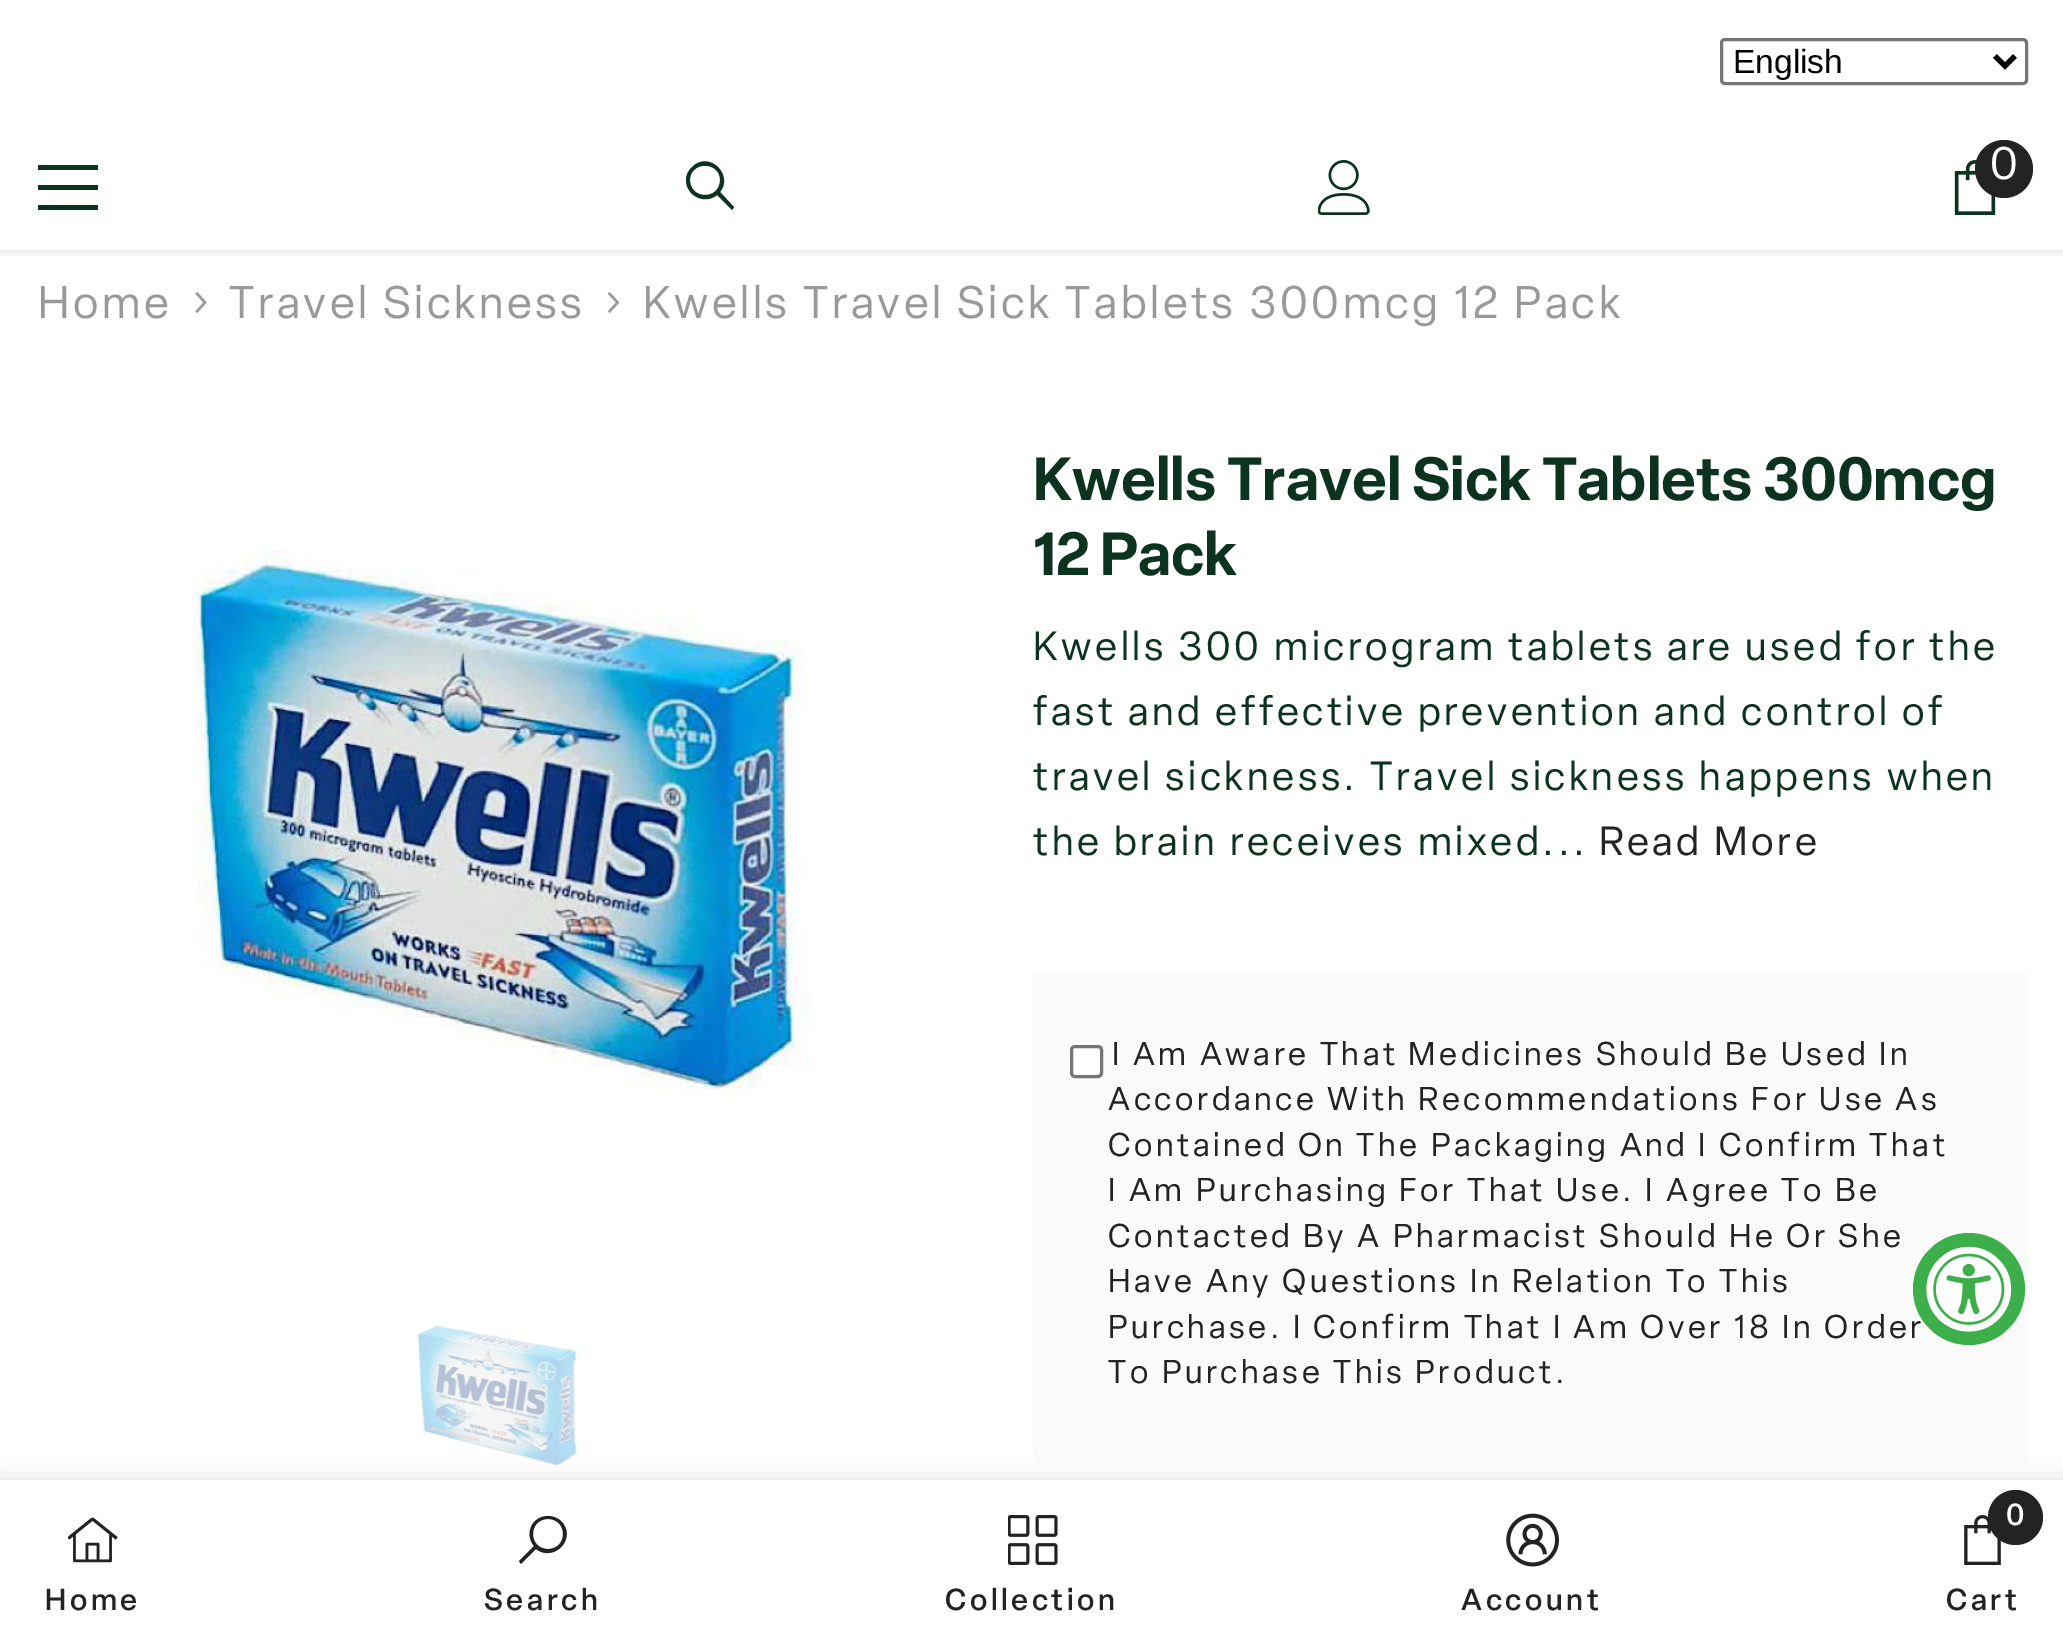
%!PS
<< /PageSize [2063 1644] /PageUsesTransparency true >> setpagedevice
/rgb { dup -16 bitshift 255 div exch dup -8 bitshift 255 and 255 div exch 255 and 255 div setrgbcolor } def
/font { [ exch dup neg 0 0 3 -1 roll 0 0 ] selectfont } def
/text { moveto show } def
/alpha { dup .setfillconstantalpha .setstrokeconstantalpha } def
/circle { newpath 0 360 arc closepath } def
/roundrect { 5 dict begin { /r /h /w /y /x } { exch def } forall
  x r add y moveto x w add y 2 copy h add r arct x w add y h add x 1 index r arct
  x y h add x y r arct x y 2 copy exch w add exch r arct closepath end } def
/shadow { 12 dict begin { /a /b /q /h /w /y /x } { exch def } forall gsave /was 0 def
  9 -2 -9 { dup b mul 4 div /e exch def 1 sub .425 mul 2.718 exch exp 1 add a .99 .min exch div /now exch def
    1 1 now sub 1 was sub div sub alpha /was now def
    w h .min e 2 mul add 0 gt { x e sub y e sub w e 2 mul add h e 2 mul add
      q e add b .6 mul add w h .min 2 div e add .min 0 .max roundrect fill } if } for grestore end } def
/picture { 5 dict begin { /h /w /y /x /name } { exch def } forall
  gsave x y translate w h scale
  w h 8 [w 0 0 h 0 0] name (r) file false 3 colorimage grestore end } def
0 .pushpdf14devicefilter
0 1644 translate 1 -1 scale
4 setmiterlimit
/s1 { /LiberationSans-Regular 33.5 font 16#000000 rgb } def
/s2 { /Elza-Regular 45 font 16#FFFFFF rgb } def
/s3 { /Elza-SemiBold 60 font 16#0C331F rgb } def
/s4 { /Elza-Medium 30 font 16#FFFFFF rgb } def
16#FFFFFF rgb
0 0 2063 1644 rectfill
gsave
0 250 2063 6 rectclip
16#000000 rgb
0 3 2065 250 0 4 0.1 shadow
grestore
16#767676 rgb
3 setlinewidth
1721.5 39.5 305 44 3.5 roundrect stroke
16#000000 rgb
5 setlinewidth
1995 56 moveto 2005 66 lineto 2015 56 lineto stroke
s1
(English) 1733 73 text
16#0C331F rgb
38 185 60 5 rectfill
38 165 60 5 rectfill
38 205 60 5 rectfill
686 180 moveto 686 196 705 205 717 195 curveto 732 210 lineto 734 207 lineto 720 192 lineto 734 175 709 150 692 167 curveto 688 171 686 175 686 180 curveto closepath 690 180 moveto 690 161 720 161 720 180 curveto 720 200 690 200 690 180 curveto closepath fill
(pic1.raw) 1318 160 52 55 picture
(pic2.raw) 1954 160 42 55 picture
16#232323 rgb
2004 169 29 circle fill
s2
(0) 1990 179 text
16#999999 rgb
38 318 moveto 3.6 0 (Home) ashow
(pic3.raw) 195 292 12 21 picture
229 318 moveto 3.6 0 (Travel Sickness) ashow
(pic4.raw) 607 292 13 21 picture
643 318 moveto 3.6 0 (Kwells Travel Sick Tablets 300mcg 12 Pack) ashow
(pic5.raw) 192 549 621 548 picture
(pic6.raw) 417 1325 160 141 picture
s3
(Kwells Travel Sick Tablets 300mcg) 1033 500 text
(12 Pack) 1033 575 text
/Elza-Regular 40 font
1033 660 moveto 3.6 0 (Kwells 300 microgram tablets are used for the) ashow
1033 725 moveto 3.6 0 (fast and effective prevention and control of) ashow
1033 790 moveto 3.6 0 (travel sickness. Travel sickness happens when) ashow
1033 855 moveto 3.6 0 (the brain receives mixed...) ashow
16#232323 rgb
1599 855 moveto 3.6 0 (Read More) ashow
16#FAFAFA rgb
1033 973 995 490 rectfill
16#FFFFFF rgb
1071.5 1046.5 30 30 3.5 roundrect gsave fill grestore
16#767676 rgb
3 setlinewidth
stroke
/Elza-Regular 32.5 font
16#232323 rgb
1112 1065 moveto 3.6 0 (I Am Aware That Medicines Should Be Used In) ashow
1108 1110 moveto 3.6 0 (Accordance With Recommendations For Use As) ashow
1108 1156 moveto 3.6 0 (Contained On The Packaging And I Confirm That) ashow
1108 1201 moveto 3.6 0 (I Am Purchasing For That Use. I Agree To Be) ashow
1108 1247 moveto 3.6 0 (Contacted By A Pharmacist Should He Or She) ashow
1108 1292 moveto 3.6 0 (Have Any Questions In Relation To This) ashow
1108 1338 moveto 3.6 0 (Purchase. I Confirm That I Am Over 18 In Order) ashow
1108 1383 moveto 3.6 0 (To Purchase This Product.) ashow
16#000000 rgb
0 1480 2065 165 0 11 0.12 shadow
16#FFFFFF rgb
0 1480 2063 164 rectfill
(pic7.raw) 68 1517 50 46 picture
/Elza-Medium 30 font
16#232323 rgb
45 1610 moveto 3.6 0 (Home) ashow
548 1516 moveto 532 1516 524 1534 534 1546 curveto 519 1561 lineto 521 1564 lineto 536 1549 lineto 554 1563 578 1538 561 1521 curveto 558 1518 553 1516 548 1516 curveto closepath 548 1519 moveto 568 1519 568 1549 548 1549 curveto 528 1549 528 1519 548 1519 curveto closepath fill
484 1610 moveto 3.6 0 (Search) ashow
(pic8.raw) 1008 1515 50 50 picture
945 1610 moveto 3.6 0 (Collection) ashow
(pic9.raw) 1506 1513 54 54 picture
1461 1610 moveto 3.6 0 (Account) ashow
(pic10.raw) 1964 1515 37 50 picture
2015.5 1517.5 27.5 circle fill
s4
(0) 2006 1525 text
16#232323 rgb
1946 1610 moveto 3.6 0 (Cart) ashow
16#3CAF4A rgb
1969 1289 56 circle fill
(pic11.raw) 1926 1246 86 86 picture
.poppdf14devicefilter showpage
